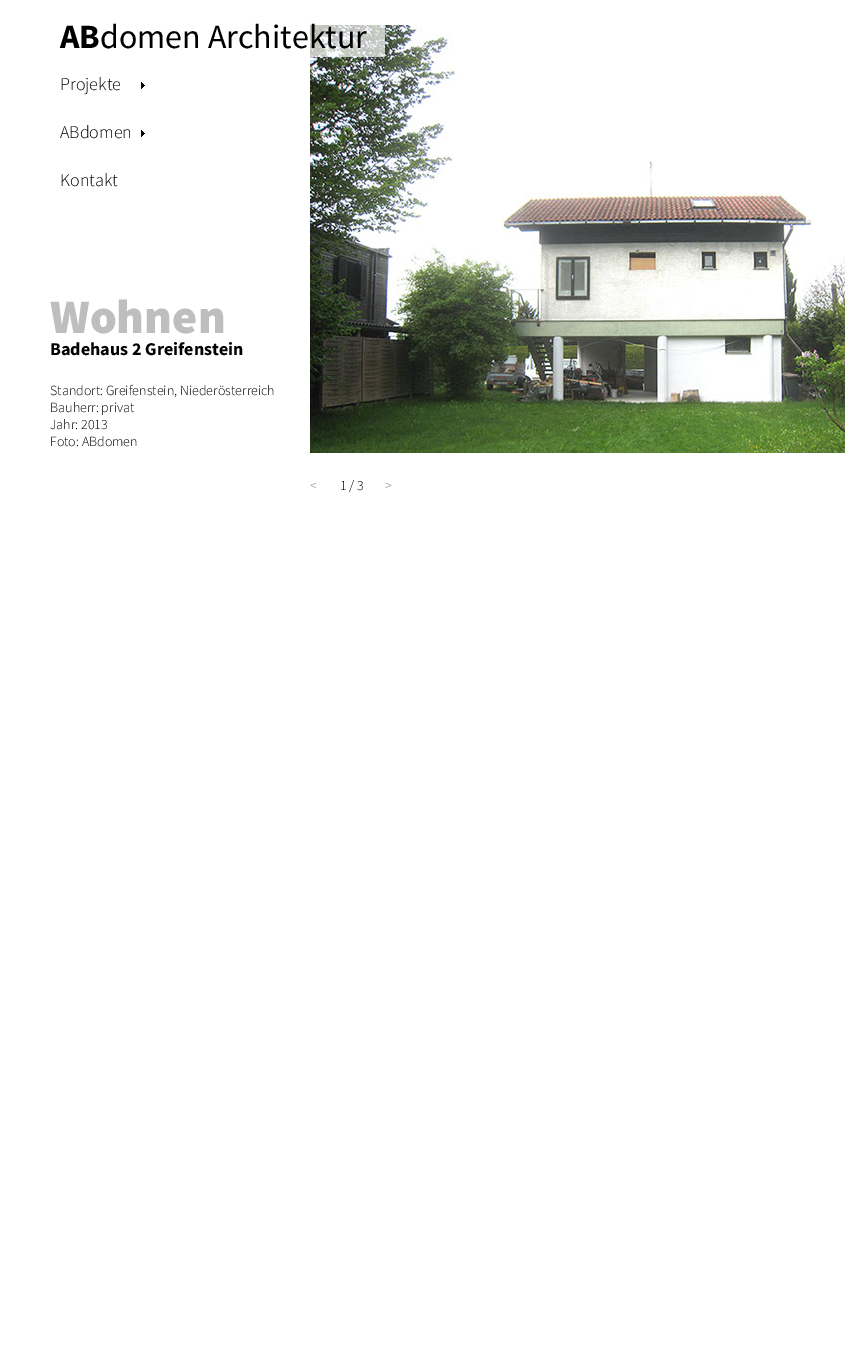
%!PS
<< /PageSize [845 1346] /PageUsesTransparency true >> setpagedevice
/rgb { dup -16 bitshift 255 div exch dup -8 bitshift 255 and 255 div exch 255 and 255 div setrgbcolor } def
/font { [ exch dup neg 0 0 3 -1 roll 0 0 ] selectfont } def
/text { moveto show } def
/alpha { dup .setfillconstantalpha .setstrokeconstantalpha } def
/picture { 5 dict begin { /h /w /y /x /name } { exch def } forall
  gsave x y translate w h scale
  w h 8 [w 0 0 h 0 0] name (r) file false 3 colorimage grestore end } def
0 .pushpdf14devicefilter
0 1346 translate 1 -1 scale
4 setmiterlimit
/s1 { /SourceSansPro-Bold 34 font 16#000000 rgb } def
/s2 { /SourceSansPro-Regular 34 font 16#000000 rgb } def
/s3 { /SourceSansPro-Light 18 font 16#000000 rgb } def
/s4 { /SourceSansPro-Black 48 font 16#BEBEBE rgb } def
/s5 { /SourceSansPro-Bold 18 font 16#000000 rgb } def
/s6 { /SourceSansPro-Light 14 font 16#000000 rgb } def
/s7 { /SourceSansPro-Light 14 font 16#808080 rgb } def
16#FFFFFF rgb
0 0 845 1346 rectfill
(pic2.raw) 310 25 535 428 picture
0.7 alpha
310 25 75 32 rectfill
1 alpha
s1
(AB) 60 48 text
s2
(domen Architektur) 100 48 text
s3
(Projekte) 60 90 text
(pic1.raw) 141 82 4 7 picture
(ABdomen) 60 138 text
(pic1.raw) 141 130 4 7 picture
(Kontakt) 60 186 text
s4
(Wohnen) 50 333 text
s5
(Badehaus 2 Greifenstein) 50 355 text
s6
(Standort: Greifenstein, Niederösterreich) 50 395 text
(Bauherr: privat) 50 412 text
(Jahr: 2013) 50 429 text
(Foto: ABdomen) 50 446 text
s7
(<) 310 490 text
s6
(1 / 3) 340 490 text
s7
(>) 385 490 text
.poppdf14devicefilter showpage
